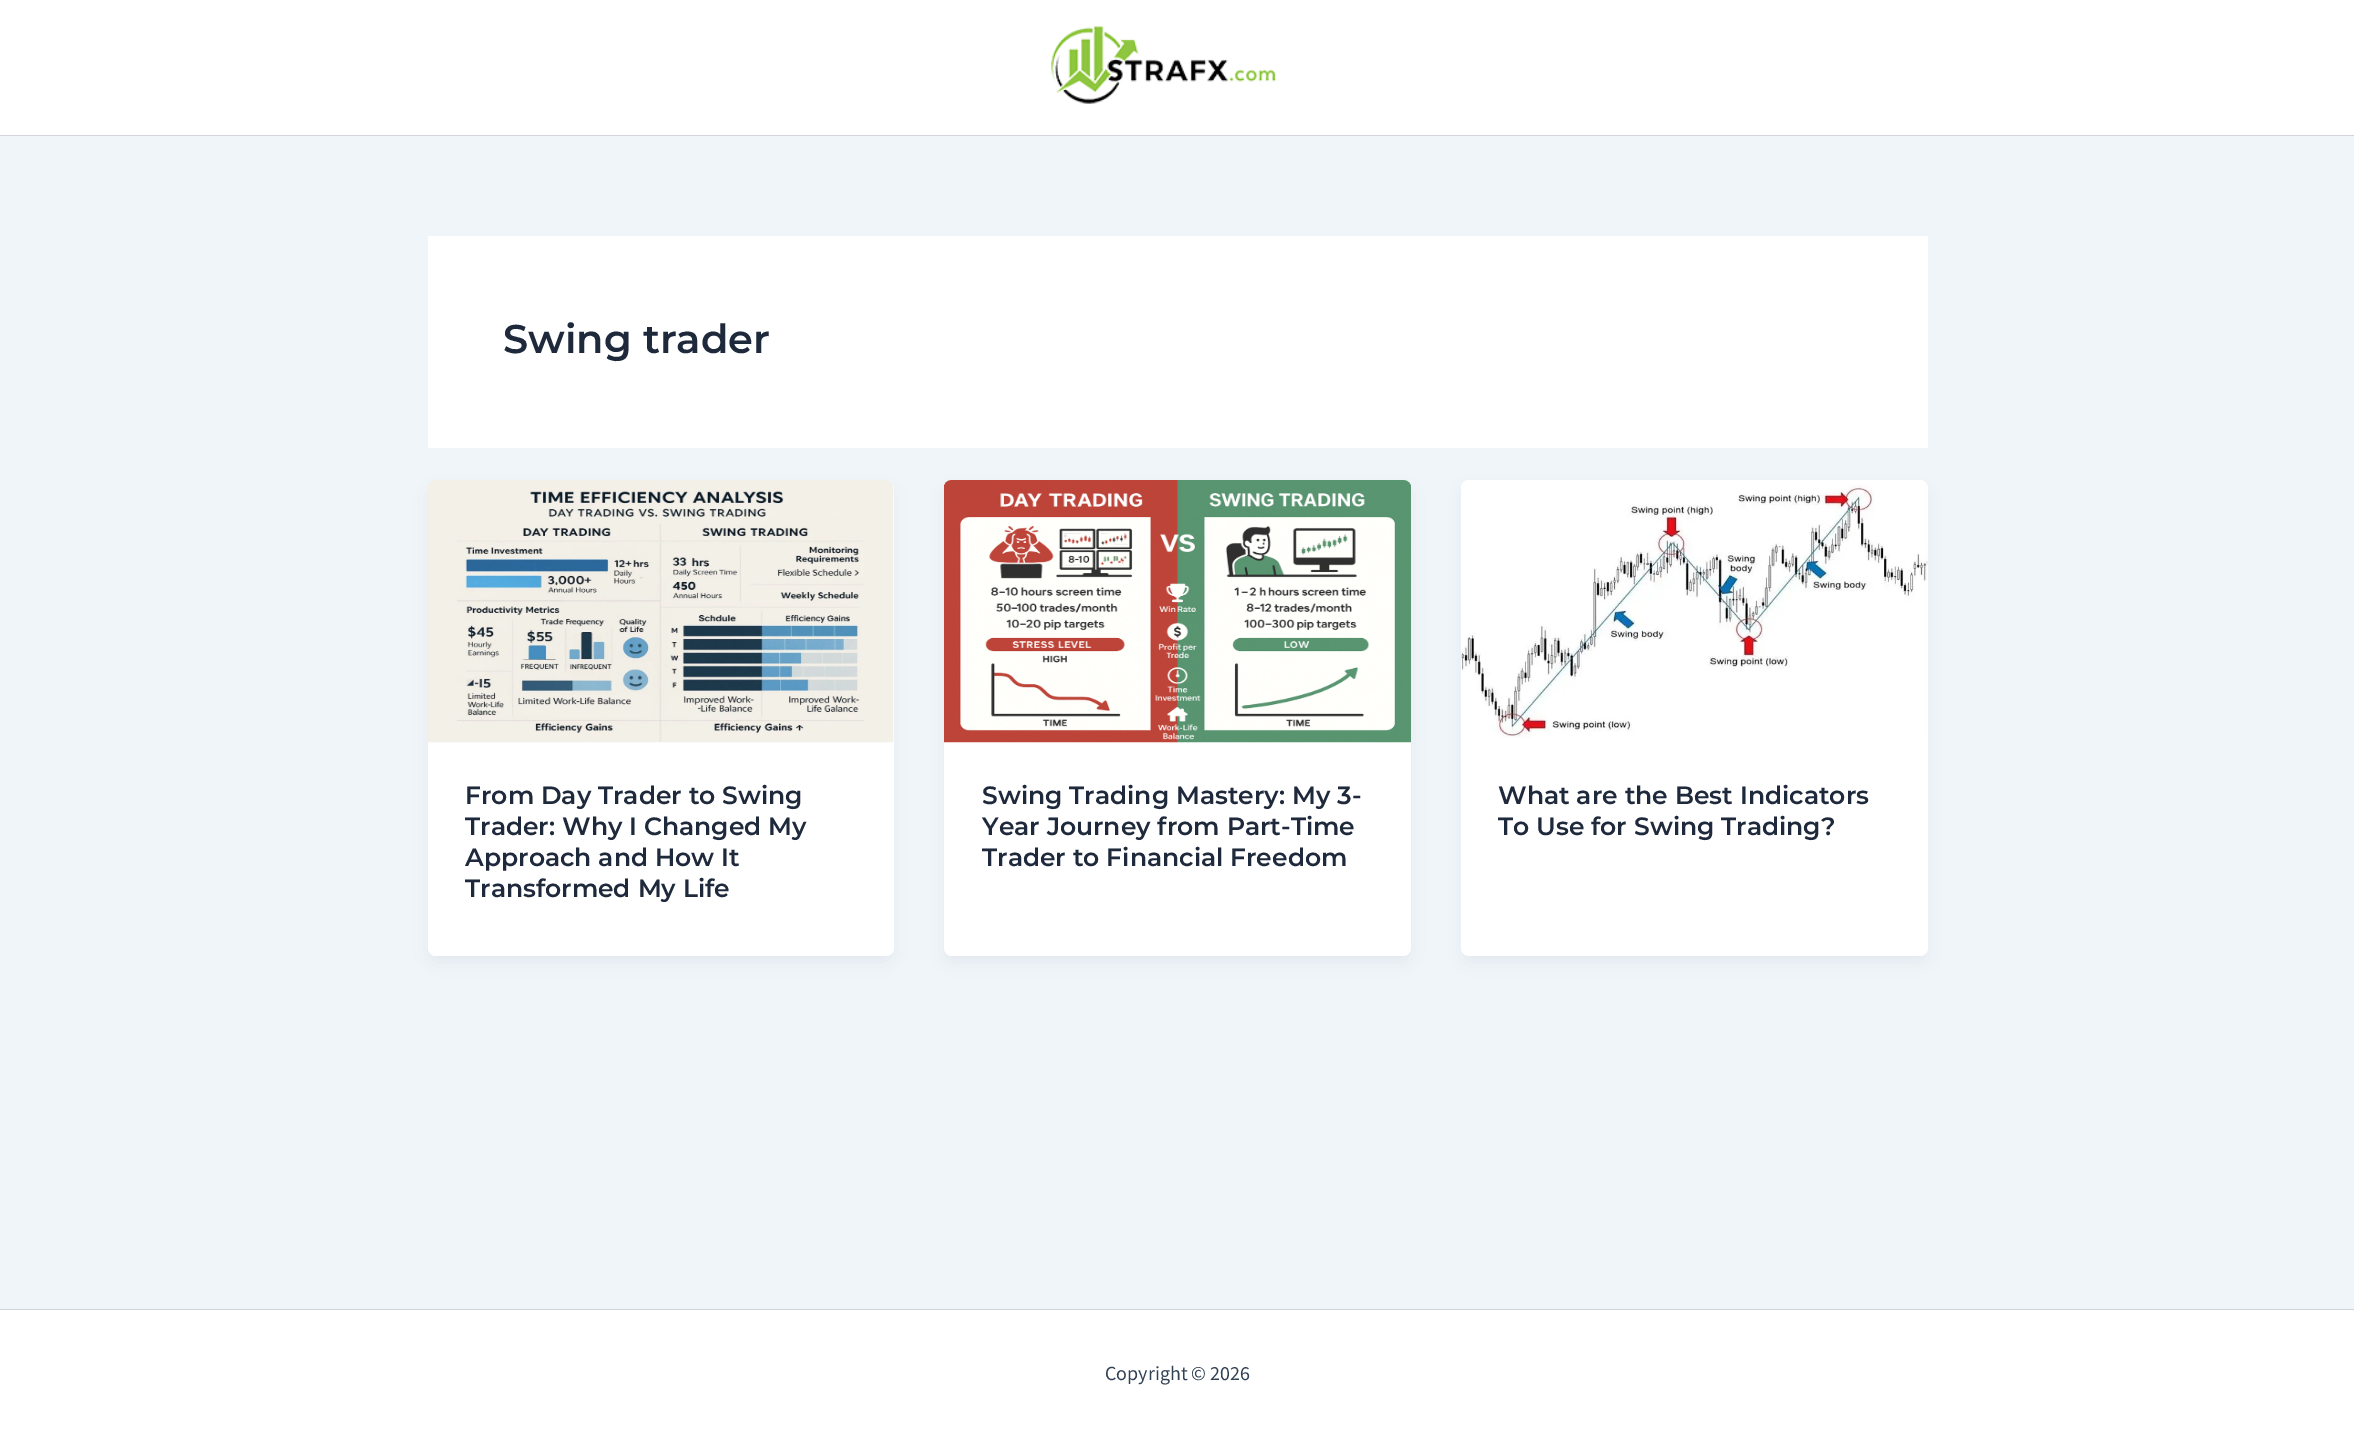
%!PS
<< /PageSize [2354 1435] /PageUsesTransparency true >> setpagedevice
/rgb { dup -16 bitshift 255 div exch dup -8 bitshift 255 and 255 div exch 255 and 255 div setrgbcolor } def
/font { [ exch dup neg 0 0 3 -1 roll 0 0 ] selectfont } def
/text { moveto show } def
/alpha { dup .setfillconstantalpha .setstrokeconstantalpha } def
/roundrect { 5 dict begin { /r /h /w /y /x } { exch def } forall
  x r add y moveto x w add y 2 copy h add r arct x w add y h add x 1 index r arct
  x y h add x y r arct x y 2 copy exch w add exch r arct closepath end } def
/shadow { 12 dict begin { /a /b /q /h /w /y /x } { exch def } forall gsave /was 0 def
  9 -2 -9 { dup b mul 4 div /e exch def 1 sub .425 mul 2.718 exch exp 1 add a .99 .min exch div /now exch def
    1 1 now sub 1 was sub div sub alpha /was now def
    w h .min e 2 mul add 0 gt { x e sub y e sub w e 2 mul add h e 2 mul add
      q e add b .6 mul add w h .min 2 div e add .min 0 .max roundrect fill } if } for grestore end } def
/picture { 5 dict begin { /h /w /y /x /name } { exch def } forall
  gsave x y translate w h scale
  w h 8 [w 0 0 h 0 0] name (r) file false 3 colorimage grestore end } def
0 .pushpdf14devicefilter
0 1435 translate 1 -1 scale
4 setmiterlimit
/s1 { /Montserrat-SemiBold 40 font 16#1E293B rgb } def
/s2 { /Montserrat-SemiBold 25 font 16#1E293B rgb } def
/s3 { /SourceSansPro-Regular 20 font 16#334155 rgb } def
16#F0F5FA rgb
0 0 2354 1435 rectfill
16#FFFFFF rgb
0 0 2354 135 rectfill
16#D1D5DB rgb
0 135 2354 1 rectfill
(pic1.raw) 1051 26 225 78 picture
16#FFFFFF rgb
428 236 1500 212 rectfill
s1
(Swing trader) 503 353 text
16#101828 rgb
430 490 461 471 5 9.5 0.05 shadow
16#FFFFFF rgb
428 480 466 476 8 roundrect fill
(pic2.raw) 428 480 466 263 picture
s2
(From Day Trader to Swing) 465 804 text
(Trader: Why I Changed My) 465 835 text
(Approach and How It) 465 866 text
(Transformed My Life) 465 897 text
16#101828 rgb
946 490 463 471 5 9.5 0.05 shadow
16#FFFFFF rgb
944 480 467 476 8 roundrect fill
(pic3.raw) 944 480 467 263 picture
s2
(Swing Trading Mastery: My 3-) 982 804 text
(Year Journey from Part-Time) 982 835 text
(Trader to Financial Freedom) 982 866 text
16#101828 rgb
1464 490 461 471 5 9.5 0.05 shadow
16#FFFFFF rgb
1461 480 467 476 8 roundrect fill
(pic4.raw) 1461 480 467 258 picture
s2
(What are the Best Indicators) 1498 804 text
(To Use for Swing Trading?) 1498 835 text
16#FFFFFF rgb
0 1310 2354 125 rectfill
16#D1D5DB rgb
0 1309 2354 1 rectfill
s3
(Copyright © 2026) 1105 1380 text
.poppdf14devicefilter showpage
